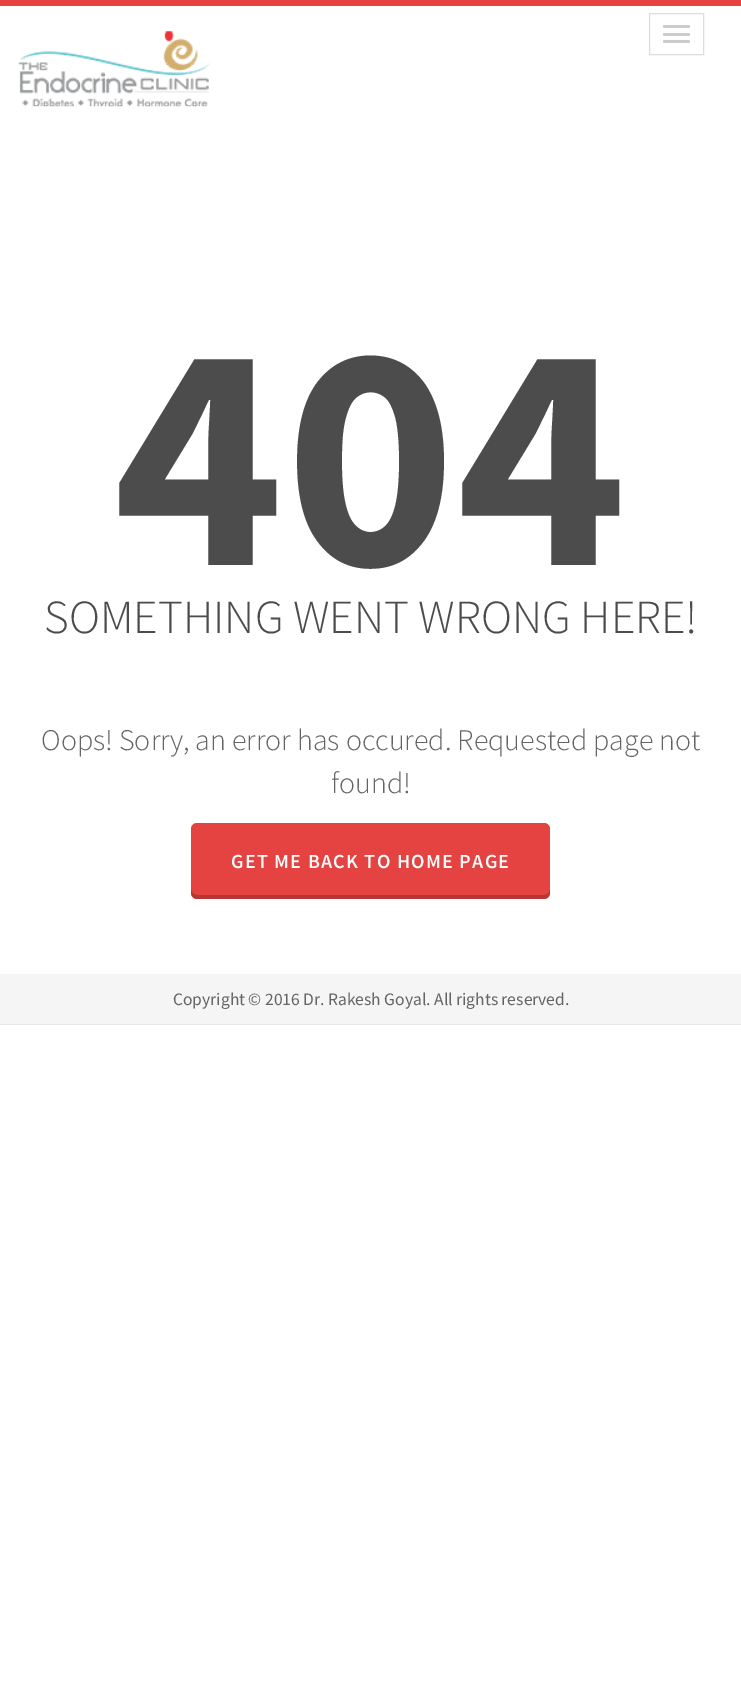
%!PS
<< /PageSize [741 1696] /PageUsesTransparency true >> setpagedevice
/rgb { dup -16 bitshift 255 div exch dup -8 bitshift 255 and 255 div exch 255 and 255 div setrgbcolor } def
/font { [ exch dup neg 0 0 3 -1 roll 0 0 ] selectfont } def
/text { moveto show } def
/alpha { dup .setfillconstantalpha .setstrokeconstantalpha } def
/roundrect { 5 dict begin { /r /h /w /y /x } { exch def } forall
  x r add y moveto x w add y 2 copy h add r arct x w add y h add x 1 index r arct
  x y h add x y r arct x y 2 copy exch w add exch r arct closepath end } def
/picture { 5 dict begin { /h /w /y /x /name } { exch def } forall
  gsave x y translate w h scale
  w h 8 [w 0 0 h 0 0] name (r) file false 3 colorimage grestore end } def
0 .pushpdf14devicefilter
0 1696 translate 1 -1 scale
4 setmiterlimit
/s1 { /SourceSansPro-Bold 325 font 16#4C4C4C rgb } def
/s2 { /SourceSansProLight-Light 47.5 font 16#4C4C4C rgb } def
/s3 { /SourceSansProLight-Light 30 font 16#646464 rgb } def
/s4 { /SourceSansPro-Regular 17.5 font 16#646464 rgb } def
16#FFFFFF rgb
0 0 741 1696 rectfill
16#E54242 rgb
0 0 741 6 rectfill
(pic1.raw) 18 31 193 76 picture
16#DDDDDD rgb
649.5 13.5 54 41 rectstroke
16#CCCCCC rgb
663 25 27 3 1.5 roundrect fill
663 33 27 3 1.5 roundrect fill
663 40 27 3 1.5 roundrect fill
s1
(404) 113 565 text
s2
(SOMETHING WENT WRONG HERE!) 44 633 text
s3
(Oops! Sorry, an error has occured. Requested page not) 41 750 text
(found!) 331 793 text
16#E54242 rgb
191 823 359 76 6 roundrect fill
0.2 alpha
16#000000 rgb
191 889 moveto 191 893 lineto 191 896 194 899 197 899 curveto 544 899 lineto 547 899 550 896 550 893 curveto 550 889 lineto 550 892 547 895 544 895 curveto 198 895 lineto 194 895 191 892 191 889 curveto closepath fill
/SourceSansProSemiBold-SemiBold 20 font
1 alpha
16#F9FAF9 rgb
231 868 moveto 1.25 0 (GET ME BACK TO HOME PAGE) ashow
16#F5F5F5 rgb
0 974 741 50 rectfill
16#E6E6E6 rgb
0 1024 741 1 rectfill
s4
(Copyright © 2016 Dr. Rakesh Goyal. All rights reserved.) 173 1005 text
.poppdf14devicefilter showpage
